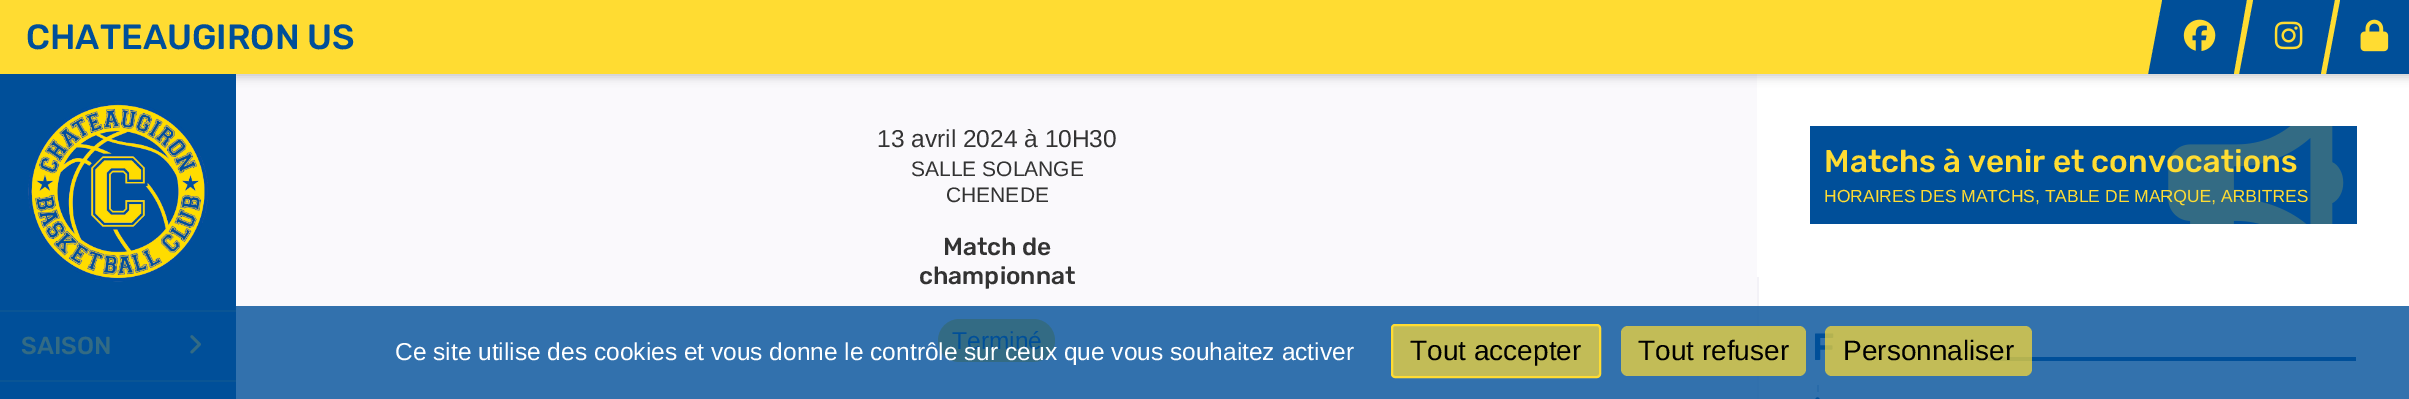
%!PS
<< /PageSize [2409 399] /PageUsesTransparency true >> setpagedevice
/rgb { dup -16 bitshift 255 div exch dup -8 bitshift 255 and 255 div exch 255 and 255 div setrgbcolor } def
/font { [ exch dup neg 0 0 3 -1 roll 0 0 ] selectfont } def
/text { moveto show } def
/alpha { dup .setfillconstantalpha .setstrokeconstantalpha } def
/roundrect { 5 dict begin { /r /h /w /y /x } { exch def } forall
  x r add y moveto x w add y 2 copy h add r arct x w add y h add x 1 index r arct
  x y h add x y r arct x y 2 copy exch w add exch r arct closepath end } def
/shadow { 12 dict begin { /a /b /q /h /w /y /x } { exch def } forall gsave /was 0 def
  9 -2 -9 { dup b mul 4 div /e exch def 1 sub .425 mul 2.718 exch exp 1 add a .99 .min exch div /now exch def
    1 1 now sub 1 was sub div sub alpha /was now def
    w h .min e 2 mul add 0 gt { x e sub y e sub w e 2 mul add h e 2 mul add
      q e add b .6 mul add w h .min 2 div e add .min 0 .max roundrect fill } if } for grestore end } def
/picture { 5 dict begin { /h /w /y /x /name } { exch def } forall
  gsave x y translate w h scale
  w h 8 [w 0 0 h 0 0] name (r) file false 3 colorimage grestore end } def
0 .pushpdf14devicefilter
0 399 translate 1 -1 scale
4 setmiterlimit
/s1 { /Rubik-Light 35 font 16#004F99 rgb } def
/s2 { /Rubik-Light 24.5 font 16#336B84 rgb } def
/s3 { /LiberationSans-Regular 24.5 font 16#333333 rgb } def
/s4 { /LiberationSans-Regular 21 font 16#333333 rgb } def
/s5 { /Rubik-Light 24.5 font 16#333333 rgb } def
/s6 { /LiberationSans-Regular 24.5 font 16#004F99 rgb } def
/s7 { /Rubik-Light 31.5 font 16#FFDC32 rgb } def
/s8 { /LiberationSans-Regular 17.5 font 16#FFDC32 rgb } def
/s9 { /Rubik-Light 38 font 16#004F99 rgb } def
/s10 { /LiberationSans-Regular 24.5 font 16#FFFFFF rgb } def
/s11 { /LiberationSans-Regular 28 font 16#000000 rgb } def
16#FAF9FC rgb
0 0 2409 399 rectfill
16#FFFFFF rgb
1757 74 652 203 rectfill
16#000000 rgb
7 4 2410 73 0 4.5 0.2 shadow
16#FFDC32 rgb
0 0 2335 74 rectfill
s1
(CHATEAUGIRON US) 26 49 text
2158 0 moveto 2249 0 lineto 2236 74 lineto 2145 74 lineto closepath fill
16#FFDC32 rgb
2158 0 moveto 2162 0 lineto 2148 74 lineto 2145 74 lineto closepath fill
2156 0 moveto 2160 0 lineto 2146 74 lineto 2143 74 lineto closepath fill
(pic1.raw) 2183 19 33 32 picture
16#004F99 rgb
2249 0 moveto 2336 0 lineto 2323 74 lineto 2236 74 lineto closepath fill
16#FFDC32 rgb
2249 0 moveto 2253 0 lineto 2239 74 lineto 2236 74 lineto closepath fill
2247 0 moveto 2251 0 lineto 2237 74 lineto 2234 74 lineto closepath fill
(pic2.raw) 2274 21 29 29 picture
16#004F99 rgb
2336 0 moveto 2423 0 lineto 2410 74 lineto 2323 74 lineto closepath fill
16#FFDC32 rgb
2336 0 moveto 2340 0 lineto 2326 74 lineto 2323 74 lineto closepath fill
2335 0 moveto 2338 0 lineto 2324 74 lineto 2321 74 lineto closepath fill
(pic3.raw) 2360 19 29 33 picture
16#004F99 rgb
0 74 236 325 rectfill
(pic4.raw) 28 101 180 181 picture
16#0A5595 rgb
0 310 236 2 rectfill
s2
(SAISON) 21 354 text
(pic5.raw) 190 335 11 19 picture
16#0A5595 rgb
0 380 236 2 rectfill
16#3271AD rgb
236 306 1521 93 rectfill
s3
(13 avril 2024 à 10H30) 877 147 text
s4
(SALLE SOLANGE) 911 176 text
(CHENEDE) 946 202 text
s5
(Match de) 943 255 text
(championnat) 919 284 text
16#336B84 rgb
938 319 117 43 21.5 roundrect fill
s6
(Terminé) 952 349 text
1810 126 547 98 rectfill
s7
(Matchs à venir et convocations) 1824 172 text
s8
(HORAIRES DES MATCHS, TABLE DE MARQUE, ARBITRES) 1824 202 text
(pic6.raw) 2168 126 176 98 picture
16#FFFFFF rgb
1759 277 650 29 rectfill
16#3372AD rgb
1759 306 650 93 rectfill
16#F3F2F7 rgb
1757 277 2 29 rectfill
16#3170AC rgb
1757 306 2 93 rectfill
s9
(F) 1812 360 text
1988 357 368 4 rectfill
16#296BA9 rgb
1817 385 2 14 rectfill
gsave
1811 368 546 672 rectclip
16#004F99 rgb
1812.5 394.5 10 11 5 roundrect gsave fill grestore
16#3372AD rgb
5 setlinewidth
stroke
grestore
s10
(Ce site utilise des cookies et vous donne le contrôle sur ceux que vous souhaitez activer) 395 360 text
16#C2BC57 rgb
1392 325 208 52 3 roundrect gsave fill grestore
16#FFDC32 rgb
2 setlinewidth
stroke
s11
(Tout accepter) 1410 360 text
0.7 alpha
16#FFDC32 rgb
1621 326 185 50 7 roundrect fill
1 alpha
s11
(Tout refuser) 1638 360 text
0.7 alpha
16#FFDC32 rgb
1825 326 207 50 7 roundrect fill
1 alpha
s11
(Personnaliser) 1843 360 text
.poppdf14devicefilter showpage
